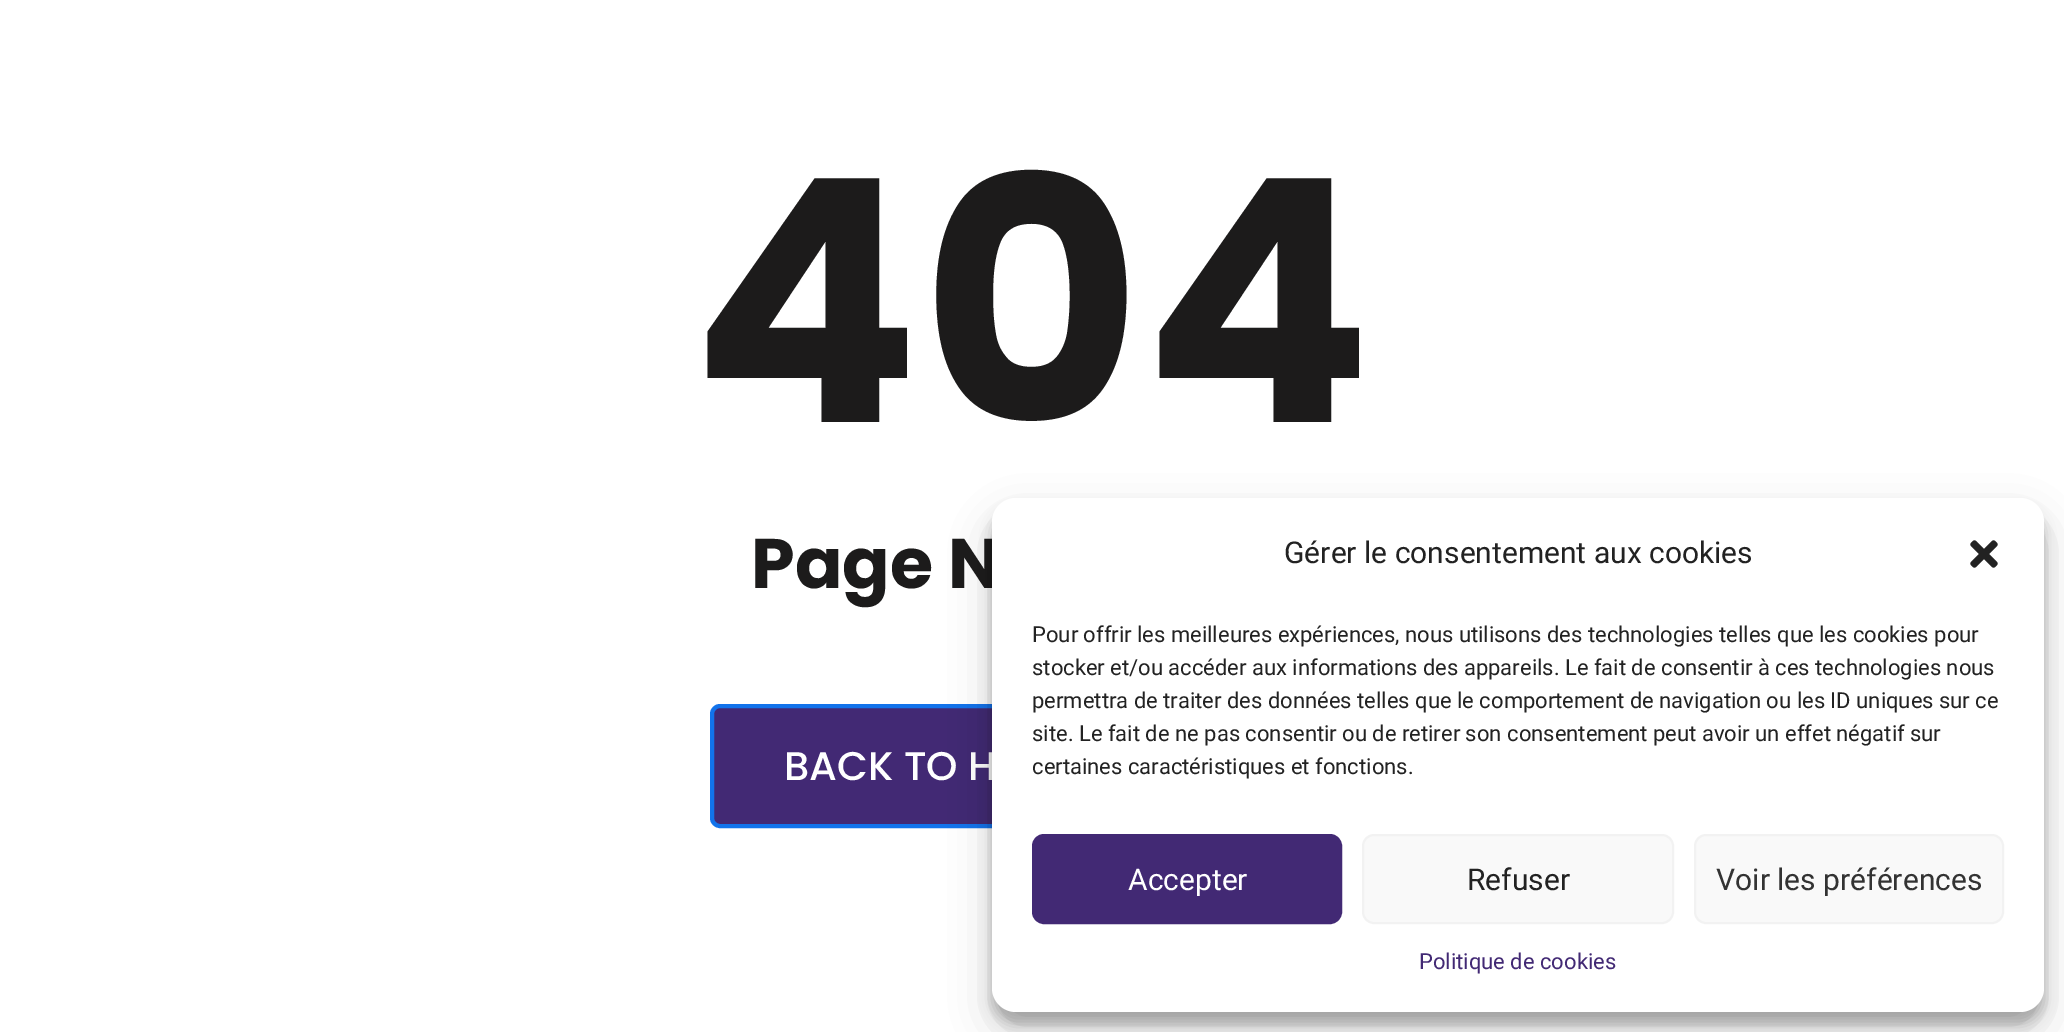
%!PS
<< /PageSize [2064 1032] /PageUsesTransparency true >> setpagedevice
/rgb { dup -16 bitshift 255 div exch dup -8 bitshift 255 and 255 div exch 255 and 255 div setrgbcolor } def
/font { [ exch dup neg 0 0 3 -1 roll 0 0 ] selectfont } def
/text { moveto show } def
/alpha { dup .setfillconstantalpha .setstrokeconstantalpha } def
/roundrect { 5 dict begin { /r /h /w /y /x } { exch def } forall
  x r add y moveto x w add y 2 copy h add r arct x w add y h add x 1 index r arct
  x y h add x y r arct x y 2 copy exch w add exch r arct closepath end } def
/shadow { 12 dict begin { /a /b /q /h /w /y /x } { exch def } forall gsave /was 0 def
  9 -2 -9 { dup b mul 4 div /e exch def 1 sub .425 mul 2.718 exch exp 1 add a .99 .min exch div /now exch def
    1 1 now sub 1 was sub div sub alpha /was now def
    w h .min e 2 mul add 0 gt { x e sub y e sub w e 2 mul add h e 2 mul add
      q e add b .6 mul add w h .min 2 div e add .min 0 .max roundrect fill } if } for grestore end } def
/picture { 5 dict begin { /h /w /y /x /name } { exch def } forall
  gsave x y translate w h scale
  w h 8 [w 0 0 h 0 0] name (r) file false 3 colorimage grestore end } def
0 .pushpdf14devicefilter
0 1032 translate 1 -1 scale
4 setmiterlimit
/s1 { /Poppins-Bold 340 font 16#1C1B1B rgb } def
/s2 { /Poppins-Bold 70 font 16#1C1B1B rgb } def
/s3 { /Poppins-Medium 40 font 16#FFFFFF rgb } def
/s4 { /Roboto-Regular 30 font 16#222222 rgb } def
/s5 { /Roboto-Regular 22 font 16#222222 rgb } def
/s6 { /Roboto-Regular 30 font 16#FFFFFF rgb } def
/s7 { /Roboto-Regular 30 font 16#333333 rgb } def
/s8 { /Roboto-Regular 22 font 16#422974 rgb } def
16#FFFFFF rgb
0 0 2064 1032 rectfill
s1
(404) 691 422 text
s2
(Page N) 751 588 text
16#422974 rgb
712 706 640 120 8 roundrect gsave fill grestore
16#1273EB rgb
4 setlinewidth
stroke
s3
(BACK TO H) 784 780 text
16#000000 rgb
992 510 1052 514 24 6 0.23 shadow
992 518 1052 514 24 20 0.19 shadow
16#FFFFFF rgb
992 498 1052 514 24 roundrect fill
s4
(Gérer le consentement aux cookies) 1284 563 text
(pic1.raw) 1970 540 28 28 picture
s5
(Pour offrir les meilleures expériences, nous utilisons des technologies telles que les cookies pour) 1032 642 text
(stocker et/ou accéder aux informations des appareils. Le fait de consentir à ces technologies nous) 1032 675 text
(permettra de traiter des données telles que le comportement de navigation ou les ID uniques sur ce) 1032 708 text
(site. Le fait de ne pas consentir ou de retirer son consentement peut avoir un effet négatif sur) 1032 741 text
(certaines caractéristiques et fonctions.) 1032 774 text
16#422974 rgb
1033 835 308 88 11 roundrect gsave fill grestore
2 setlinewidth
stroke
s6
(Accepter) 1128 890 text
16#F9F9F9 rgb
1363 835 310 88 11 roundrect gsave fill grestore
16#F2F2F2 rgb
stroke
s4
(Refuser) 1467 890 text
16#F9F9F9 rgb
1695 835 308 88 11 roundrect gsave fill grestore
16#F2F2F2 rgb
stroke
s7
(Voir les préférences) 1716 890 text
s8
(Politique de cookies) 1419 969 text
.poppdf14devicefilter showpage
